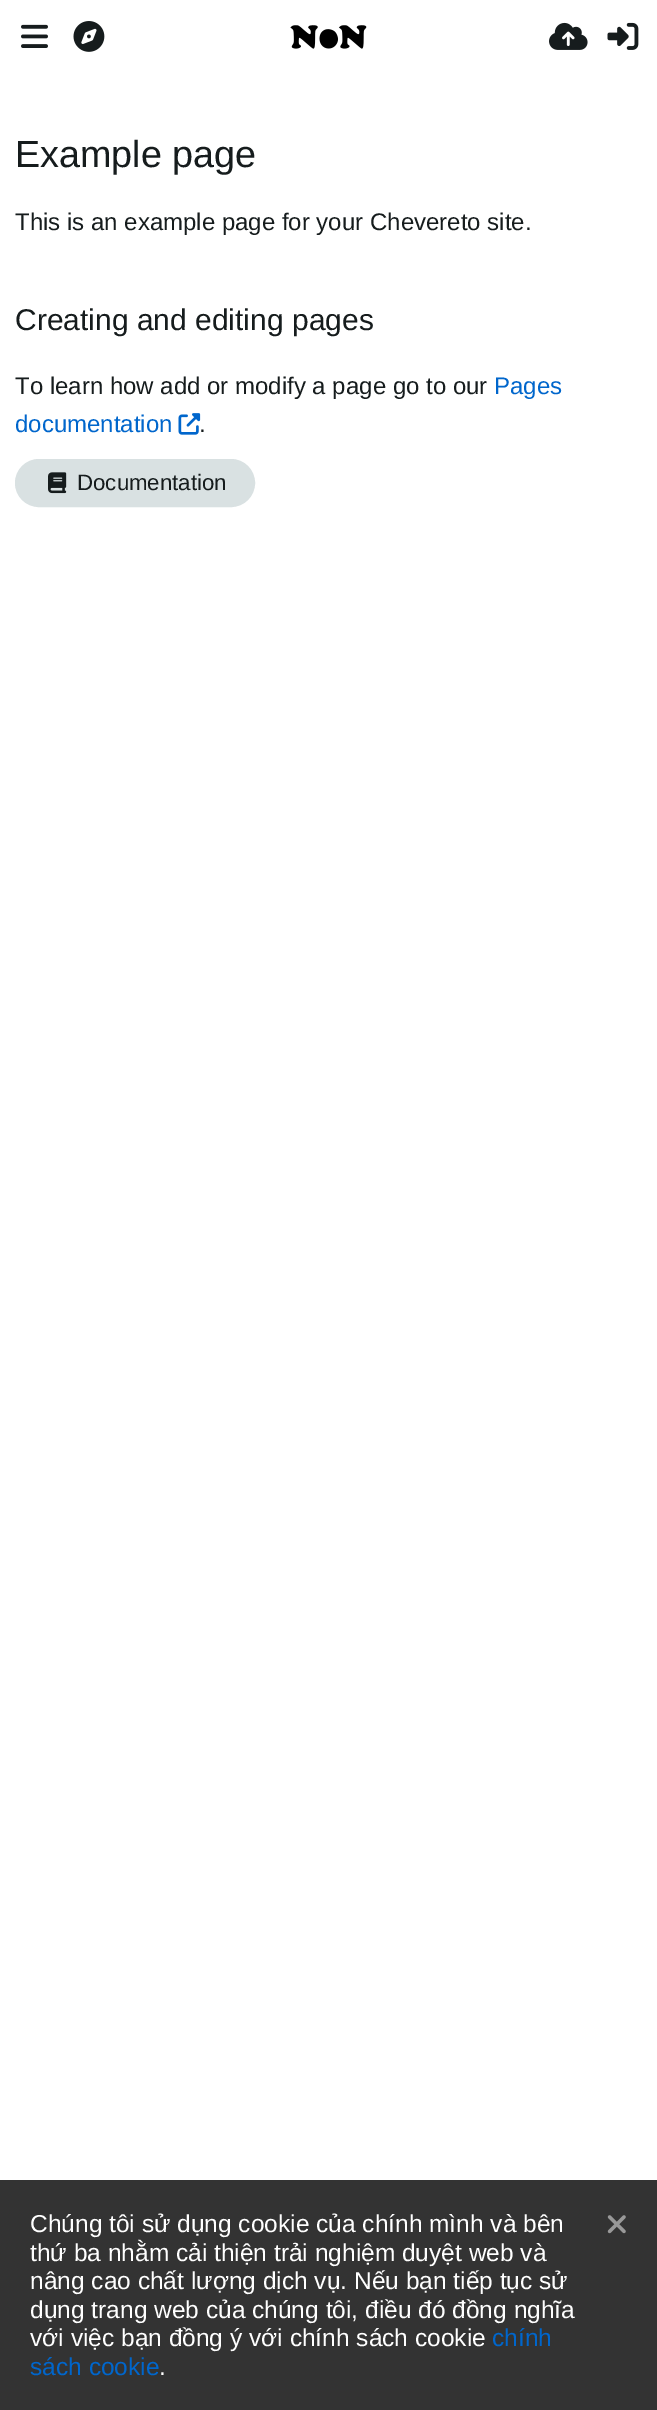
%!PS
<< /PageSize [657 2410] >> setpagedevice
/rgb { dup -16 bitshift 255 div exch dup -8 bitshift 255 and 255 div exch 255 and 255 div setrgbcolor } def
/font { [ exch dup neg 0 0 3 -1 roll 0 0 ] selectfont } def
/text { moveto show } def
/roundrect { 5 dict begin { /r /h /w /y /x } { exch def } forall
  x r add y moveto x w add y 2 copy h add r arct x w add y h add x 1 index r arct
  x y h add x y r arct x y 2 copy exch w add exch r arct closepath end } def
/picture { 5 dict begin { /h /w /y /x /name } { exch def } forall
  gsave x y translate w h scale
  w h 8 [w 0 0 h 0 0] name (r) file false 3 colorimage grestore end } def
0 2410 translate 1 -1 scale
4 setmiterlimit
/s1 { /LiberationSans-Regular 37.75 font 16#161C1D rgb } def
/s2 { /LiberationSans-Regular 24 font 16#161C1D rgb } def
/s3 { /LiberationSans-Regular 30 font 16#161C1D rgb } def
/s4 { /LiberationSans-Regular 24 font 16#0066CC rgb } def
/s5 { /LiberationSans-Regular 22.25 font 16#161C1D rgb } def
/s6 { /LiberationSans-Regular 24.5 font 16#FFFFFF rgb } def
/s7 { /LiberationSans-Regular 24.5 font 16#0066CC rgb } def
16#FFFFFF rgb
0 0 657 2410 rectfill
(pic1.raw) 21 24 27 24 picture
(pic2.raw) 73 21 32 31 picture
(pic3.raw) 290 25 77 24 picture
(pic4.raw) 549 22 39 28 picture
(pic5.raw) 607 22 32 28 picture
s1
(Example page) 15 167 text
s2
(This is an example page for your Chevereto site.) 15 230 text
s3
(Creating and editing pages) 15 330 text
s2
(To learn how add or modify a page go to our) 15 394 text
s4
(Pages) 494 394 text
(documentation) 15 432 text
(pic6.raw) 178 413 23 22 picture
s2
(.) 199 432 text
16#D9E1E2 rgb
16 460 238 46 23 roundrect gsave fill grestore
2 setlinewidth
stroke
(pic7.raw) 48 472 19 22 picture
s5
(Documentation) 77 490 text
16#333333 rgb
0 2180 657 230 rectfill
s6
(Chúng tôi sử dụng cookie của chính mình và bên) 30 2232 text
(thứ ba nhằm cải thiện trải nghiệm duyệt web và) 30 2261 text
(nâng cao chất lượng dịch vụ. Nếu bạn tiếp tục sử) 30 2289 text
(dụng trang web của chúng tôi, điều đó đồng nghĩa) 30 2318 text
(với việc bạn đồng ý với chính sách cookie) 30 2346 text
s7
(chính) 492 2346 text
(sách cookie) 30 2375 text
s6
(.) 159 2375 text
(pic8.raw) 607 2215 19 19 picture
showpage
